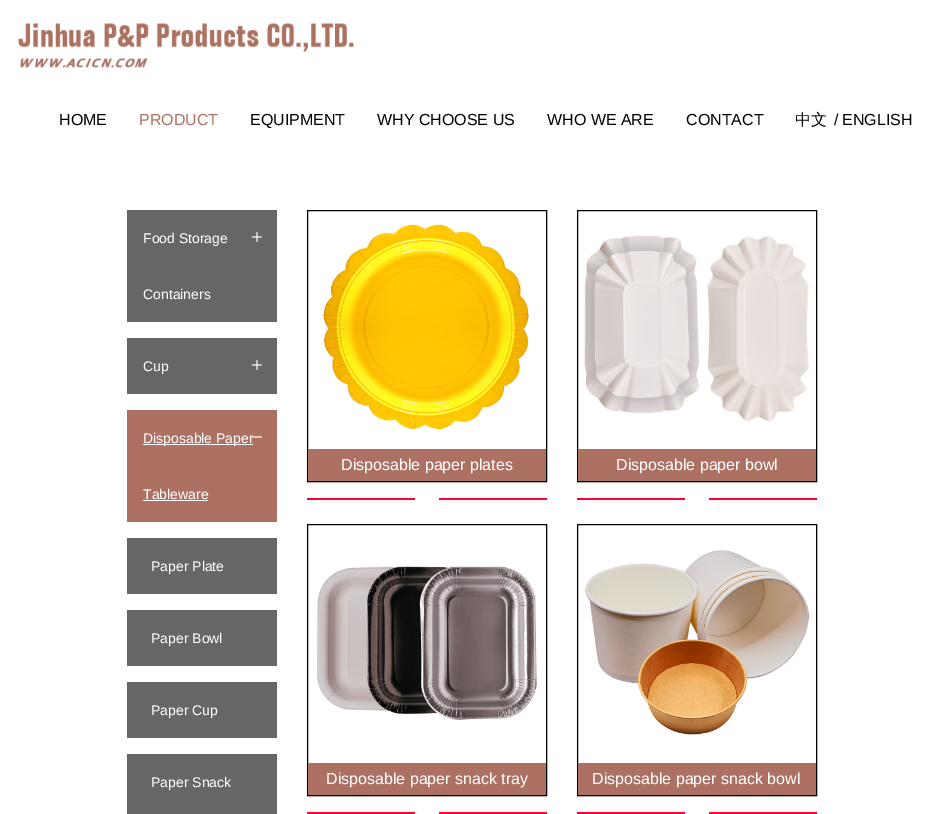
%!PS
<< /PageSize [943 814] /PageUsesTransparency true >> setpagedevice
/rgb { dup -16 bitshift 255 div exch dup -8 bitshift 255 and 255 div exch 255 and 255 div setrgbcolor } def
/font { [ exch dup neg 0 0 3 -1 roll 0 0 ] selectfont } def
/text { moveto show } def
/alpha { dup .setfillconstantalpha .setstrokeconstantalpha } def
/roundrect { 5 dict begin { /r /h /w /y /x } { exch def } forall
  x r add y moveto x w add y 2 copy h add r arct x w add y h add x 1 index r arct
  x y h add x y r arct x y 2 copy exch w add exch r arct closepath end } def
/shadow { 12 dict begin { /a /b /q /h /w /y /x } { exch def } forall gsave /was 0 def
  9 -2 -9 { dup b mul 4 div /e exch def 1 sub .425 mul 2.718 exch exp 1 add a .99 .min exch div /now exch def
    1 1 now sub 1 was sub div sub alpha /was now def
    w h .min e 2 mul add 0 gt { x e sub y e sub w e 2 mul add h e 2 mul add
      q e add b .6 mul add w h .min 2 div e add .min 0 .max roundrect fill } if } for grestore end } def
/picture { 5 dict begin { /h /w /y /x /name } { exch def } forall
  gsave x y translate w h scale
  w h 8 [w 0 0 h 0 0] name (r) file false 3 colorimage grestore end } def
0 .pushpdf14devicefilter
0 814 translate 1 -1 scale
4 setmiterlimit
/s1 { /LiberationSans-Regular 16 font 16#000000 rgb } def
/s2 { /LiberationSans-Regular 16 font 16#AC7161 rgb } def
/s3 { /WenQuanYiZenHei-Medium 16 font 16#000000 rgb } def
/s4 { /LiberationSans-Regular 14 font 16#FFFFFF rgb } def
/s5 { /LiberationSans-Regular 16 font 16#FFFFFF rgb } def
16#FFFFFF rgb
0 0 943 814 rectfill
(pic1.raw) 18 23 336 45 picture
s1
(HOME) 59 125 text
s2
(PRODUCT) 139 125 text
s1
(EQUIPMENT) 250 125 text
(WHY CHOOSE US) 377 125 text
(WHO WE ARE) 547 125 text
(CONTACT) 686 125 text
s3
(中文) 795 125 text
s1
(/) 834 125 text
(ENGLISH) 842 125 text
16#666666 rgb
127 210 150 112 rectfill
s4
(Food Storage) 143 243 text
(Containers) 143 299 text
(pic2.raw) 252 232 10 10 picture
16#666666 rgb
127 338 150 56 rectfill
s4
(Cup) 143 371 text
(pic2.raw) 252 360 10 10 picture
16#AC7163 rgb
127 410 150 112 rectfill
16#FFFFFF rgb
143 444 110 1 rectfill
(Disposable Paper) 143 443 text
(Tableware) 143 499 text
143 500 65 1 rectfill
(pic3.raw) 252 436 10 2 picture
16#666666 rgb
127 538 150 56 rectfill
s4
(Paper Plate) 151 571 text
16#666666 rgb
127 610 150 56 rectfill
s4
(Paper Bowl) 151 643 text
16#666666 rgb
127 682 150 56 rectfill
s4
(Paper Cup) 151 715 text
16#666666 rgb
127 754 150 60 rectfill
s4
(Paper Snack) 151 787 text
gsave
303 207 moveto 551 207 lineto 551 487 lineto 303 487 lineto closepath 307 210 moveto 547 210 lineto 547 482 lineto 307 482 lineto closepath eoclip newpath
16#000000 rgb
307 211 240 272 0 1 0.1 shadow
grestore
16#000000 rgb
307.5 210.5 239 271 rectstroke
(pic4.raw) 323 224 206 206 picture
16#AC7163 rgb
308 449 238 32 rectfill
s5
(Disposable paper plates) 341 470 text
16#FF0036 rgb
307 498 108 2 rectfill
439 498 108 2 rectfill
gsave
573 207 moveto 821 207 lineto 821 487 lineto 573 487 lineto closepath 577 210 moveto 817 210 lineto 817 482 lineto 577 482 lineto closepath eoclip newpath
16#000000 rgb
577 211 240 272 0 1 0.1 shadow
grestore
16#000000 rgb
577.5 210.5 239 271 rectstroke
(pic5.raw) 584 235 225 187 picture
16#AC7163 rgb
578 449 238 32 rectfill
s5
(Disposable paper bowl) 616 470 text
16#FF0036 rgb
577 498 108 2 rectfill
709 498 108 2 rectfill
gsave
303 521 moveto 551 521 lineto 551 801 lineto 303 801 lineto closepath 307 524 moveto 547 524 lineto 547 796 lineto 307 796 lineto closepath eoclip newpath
16#000000 rgb
307 525 240 272 0 1 0.1 shadow
grestore
16#000000 rgb
307.5 524.5 239 271 rectstroke
(pic6.raw) 317 566 220 154 picture
16#AC7163 rgb
308 763 238 32 rectfill
s5
(Disposable paper snack tray) 326 784 text
16#FF0036 rgb
307 812 108 2 rectfill
439 812 108 2 rectfill
gsave
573 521 moveto 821 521 lineto 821 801 lineto 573 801 lineto closepath 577 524 moveto 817 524 lineto 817 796 lineto 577 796 lineto closepath eoclip newpath
16#000000 rgb
577 525 240 272 0 1 0.1 shadow
grestore
16#000000 rgb
577.5 524.5 239 271 rectstroke
(pic7.raw) 585 550 224 185 picture
16#AC7163 rgb
578 763 238 32 rectfill
s5
(Disposable paper snack bowl) 592 784 text
16#FF0036 rgb
577 812 108 2 rectfill
709 812 108 2 rectfill
.poppdf14devicefilter showpage
